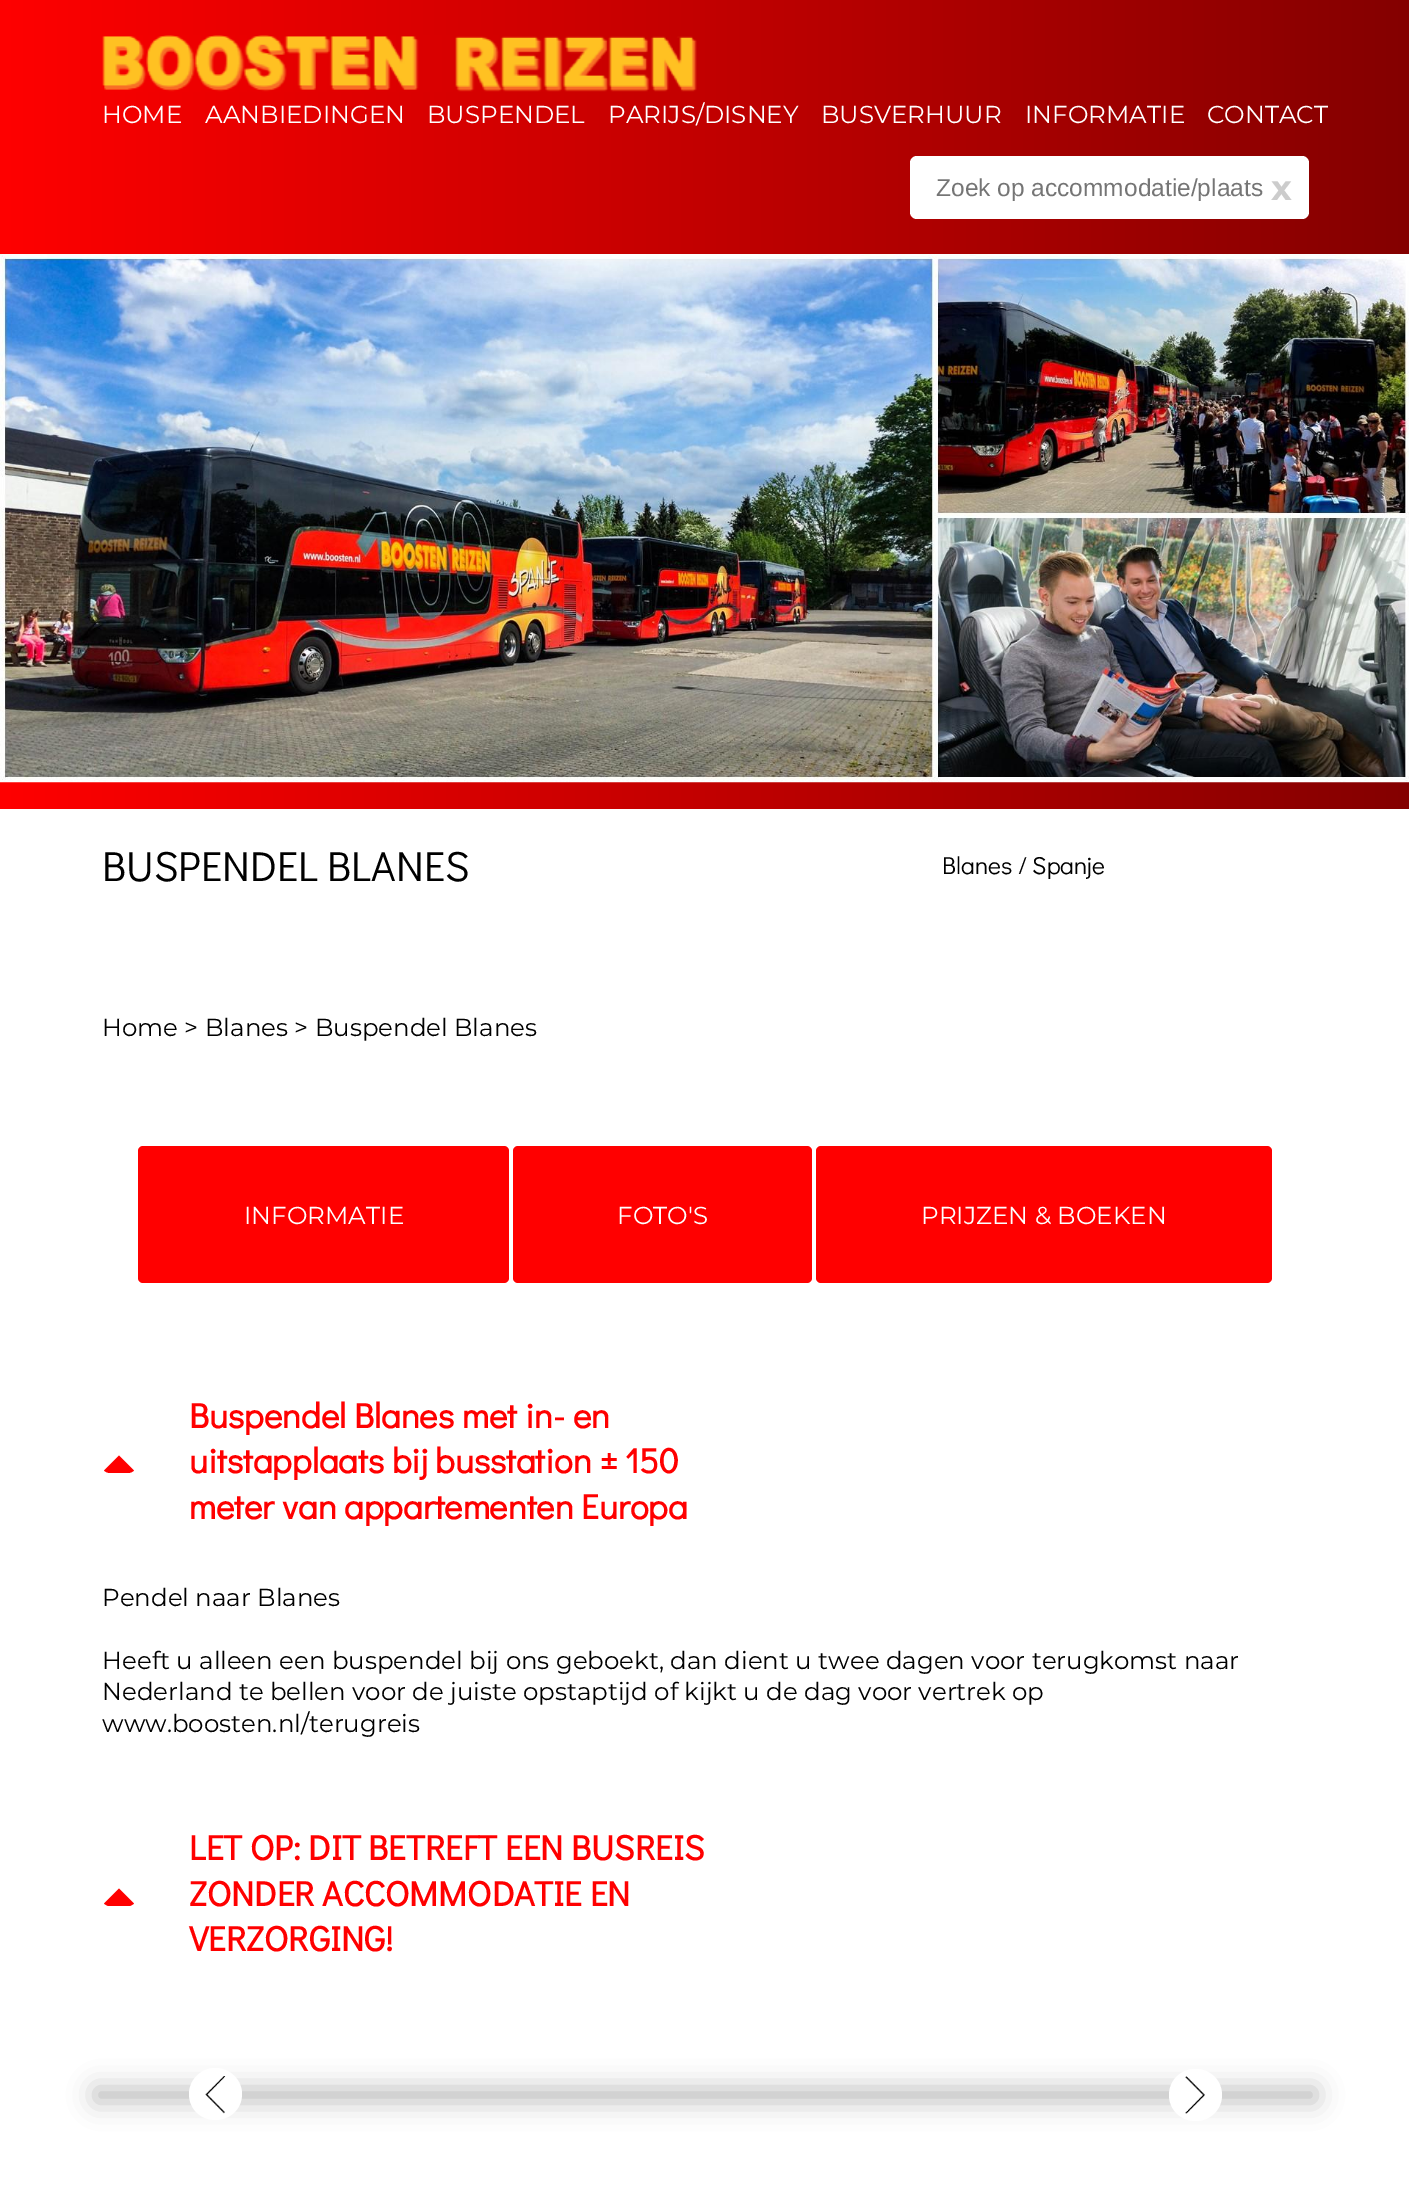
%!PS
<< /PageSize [1409 2188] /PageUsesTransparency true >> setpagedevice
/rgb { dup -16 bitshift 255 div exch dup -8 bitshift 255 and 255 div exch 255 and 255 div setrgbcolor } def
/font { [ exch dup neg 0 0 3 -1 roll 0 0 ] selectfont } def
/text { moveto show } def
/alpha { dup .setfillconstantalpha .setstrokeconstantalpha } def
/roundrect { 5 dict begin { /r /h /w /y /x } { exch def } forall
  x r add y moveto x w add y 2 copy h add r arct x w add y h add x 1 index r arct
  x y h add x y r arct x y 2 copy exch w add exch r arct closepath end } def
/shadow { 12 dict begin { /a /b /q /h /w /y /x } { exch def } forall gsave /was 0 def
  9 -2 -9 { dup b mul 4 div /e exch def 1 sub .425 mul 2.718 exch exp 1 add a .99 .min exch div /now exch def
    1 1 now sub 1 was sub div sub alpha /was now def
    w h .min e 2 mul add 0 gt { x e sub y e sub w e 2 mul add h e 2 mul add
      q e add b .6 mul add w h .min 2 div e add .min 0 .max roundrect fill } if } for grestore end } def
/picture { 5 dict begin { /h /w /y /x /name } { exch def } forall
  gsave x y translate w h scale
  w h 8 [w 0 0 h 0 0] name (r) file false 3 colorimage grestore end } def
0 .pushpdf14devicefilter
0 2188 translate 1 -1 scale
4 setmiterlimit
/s1 { /Montserrat-Regular 24.5 font 16#FFFFFF rgb } def
/s2 { /LiberationSans-Regular 24.5 font 16#757575 rgb } def
/s3 { /Montserrat-Bold 35 font 16#CCCCCC rgb } def
/s4 { /DidactGothic-Regular 42 font 16#000000 rgb } def
/s5 { /DidactGothic-Regular 24.5 font 16#000000 rgb } def
/s6 { /Montserrat-Regular 24.5 font 16#000000 rgb } def
/s7 { /DidactGothic-Bold 35 font 16#FF0000 rgb } def
16#FFFFFF rgb
0 0 1409 2188 rectfill
gsave 0 0 moveto 1409 0 lineto 1409 254 lineto 0 254 lineto closepath clip newpath
<< /ShadingType 2 /ColorSpace /DeviceRGB /Coords [0 127 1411 127] /Extend [true true] /Function << /FunctionType 2 /Domain [0 1] /C0 [1 0 0] /C1 [0.518 0 0] /N 1 >> >> shfill grestore
(pic1.raw) 102 35 595 57 picture
s1
(HOME) 102 123 text
(AANBIEDINGEN) 205 123 text
(BUSPENDEL) 427 123 text
(PARIJS/DISNEY) 608 123 text
(BUSVERHUUR) 821 123 text
(INFORMATIE) 1025 123 text
(CONTACT) 1207 123 text
910 156 399 63 7 roundrect fill
gsave
936 173 347 28 rectclip
s2
(Zoek op accommodatie/plaats) 936 196 text
grestore
s3
(x) 1271 200 text
gsave 0 782 moveto 1409 782 lineto 1409 809 lineto 0 809 lineto closepath clip newpath
<< /ShadingType 2 /ColorSpace /DeviceRGB /Coords [0 267 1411 267] /Extend [true true] /Function << /FunctionType 2 /Domain [0 1] /C0 [1 0 0] /C1 [0.518 0 0] /N 1 >> >> shfill grestore
(pic2.raw) 0 254 1409 529 picture
s4
(BUSPENDEL BLANES) 102 881 text
s5
(Blanes / Spanje) 942 874 text
s6
(Home > Blanes > Buspendel Blanes) 102 1036 text
16#FF0000 rgb
138 1146 371 137 5 roundrect fill
s1
(INFORMATIE) 244 1224 text
16#FF0000 rgb
513 1146 299 137 5 roundrect fill
s1
(FOTO'S) 617 1224 text
16#FF0000 rgb
816 1146 456 137 5 roundrect fill
s1
(PRIJZEN & BOEKEN) 921 1224 text
16#FF0000 rgb
128 1473 moveto 130 1473 132.5 1472 134 1470.5 curveto 119 1455.5 lineto 104 1470.5 lineto 105.5 1472 108 1473 110 1473 curveto closepath fill
s7
(Buspendel Blanes met in- en) 189 1428 text
(uitstapplaats bij busstation ± 150) 189 1473 text
(meter van appartementen Europa) 189 1519 text
s6
(Pendel naar Blanes) 102 1606 text
(Heeft u alleen een buspendel bij ons geboekt, dan dient u twee dagen voor terugkomst naar) 102 1669 text
(Nederland te bellen voor de juiste opstaptijd of kijkt u de dag voor vertrek op) 102 1700 text
(www.boosten.nl/terugreis) 102 1732 text
16#FF0000 rgb
129.5 1906 moveto 108.5 1906 lineto 106.5 1905.5 105 1904.5 104 1903.5 curveto 119 1888.5 lineto 134 1903.5 lineto 133 1904.5 131.5 1905.5 129.5 1906 curveto closepath fill
s7
(LET OP: DIT BETREFT EEN BUSREIS) 189 1860 text
(ZONDER ACCOMMODATIE EN) 189 1906 text
(VERZORGING!) 189 1951 text
16#BDBDBD rgb
95 2088 1221 14 0 13 1 shadow
16#FFFFFF rgb
215 2120 moveto 201 2120 189 2109 189 2094 curveto 189 2080 201 2068 215 2068 curveto 230 2068 242 2080 242 2094 curveto 242 2109 230 2120 215 2120 curveto closepath fill
(pic3.raw) 205 2076 21 38 picture
1169 2069 53 52 26 roundrect fill
(pic4.raw) 1185 2076 20 38 picture
.poppdf14devicefilter showpage
